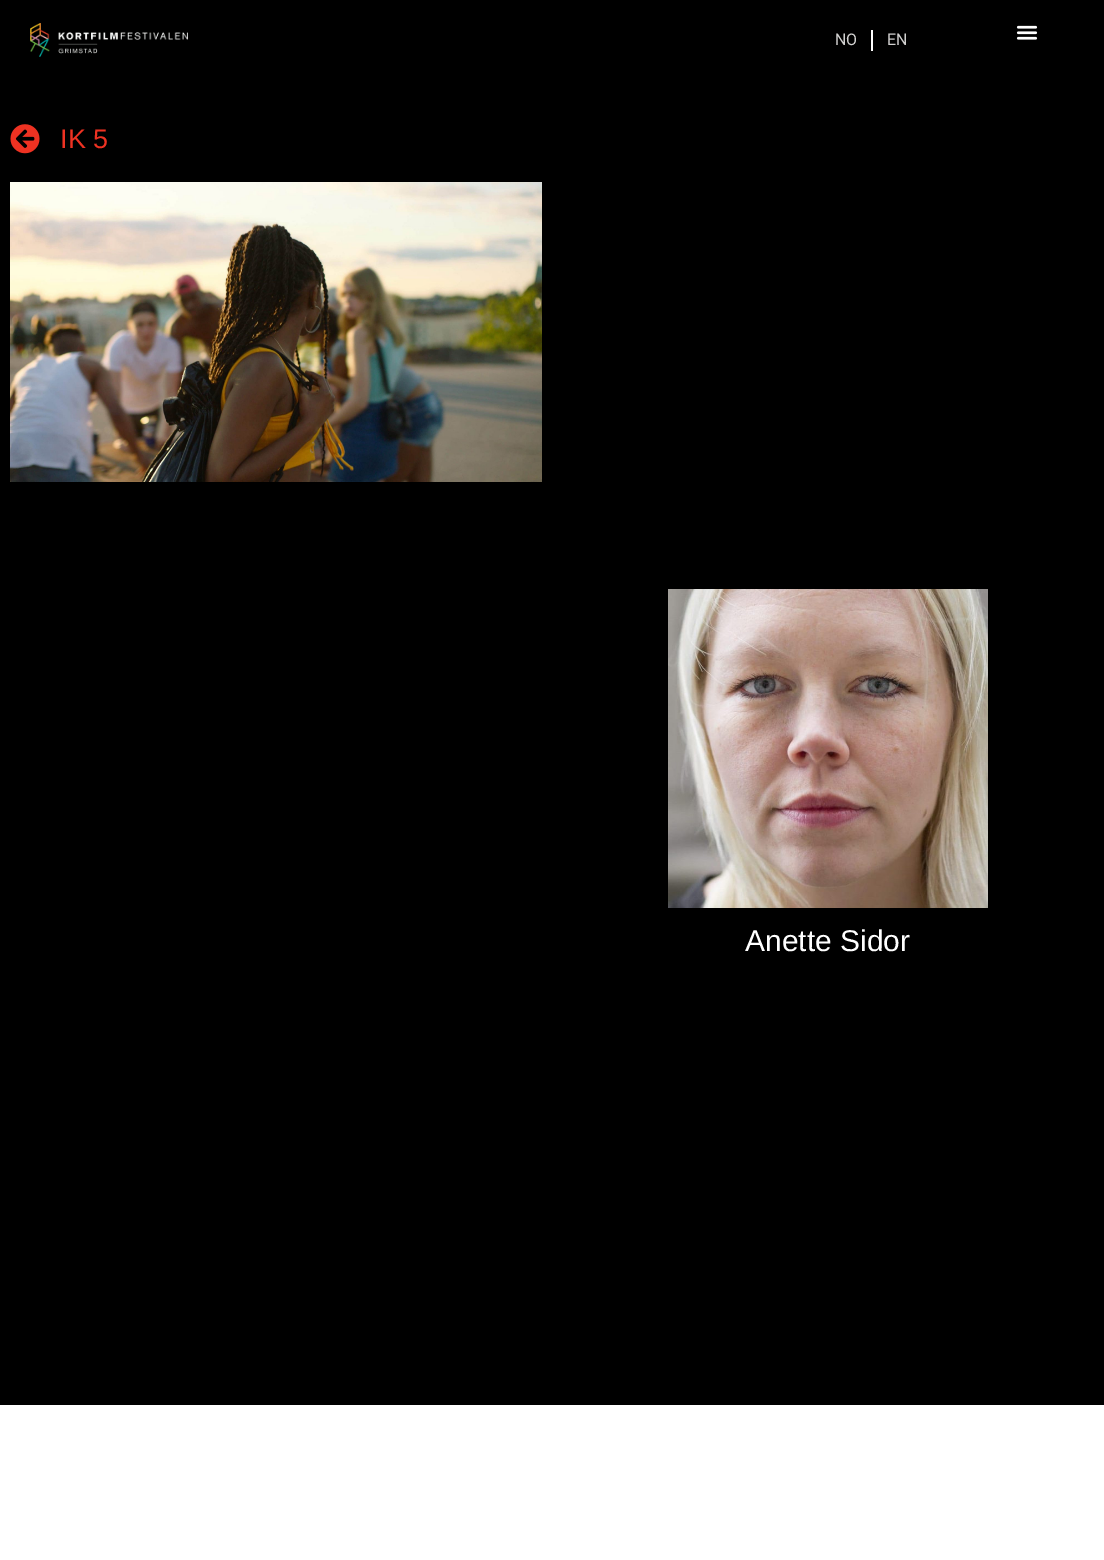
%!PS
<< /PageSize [1104 1560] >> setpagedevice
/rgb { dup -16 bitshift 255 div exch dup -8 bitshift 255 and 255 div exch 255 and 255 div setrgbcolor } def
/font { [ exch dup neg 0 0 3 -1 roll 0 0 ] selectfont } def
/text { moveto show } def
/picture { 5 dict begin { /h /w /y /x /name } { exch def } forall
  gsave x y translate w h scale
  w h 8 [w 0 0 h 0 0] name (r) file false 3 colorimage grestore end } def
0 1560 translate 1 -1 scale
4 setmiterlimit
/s1 { /Roboto-Regular 16 font 16#D1D0CF rgb } def
/s2 { /LiberationSans-Regular 27 font 16#EE3222 rgb } def
/s3 { /LiberationSans-Regular 30 font 16#FFFFFF rgb } def
16#FFFFFF rgb
0 0 1104 1560 rectfill
16#000000 rgb
0 0 1104 1405 rectfill
(pic1.raw) 30 23 158 34 picture
s1
(NO) 835 45 text
16#FFFFFF rgb
871 30 2 21 rectfill
s1
(EN) 887 45 text
(pic2.raw) 1016 25 22 15 picture
(pic3.raw) 10 124 30 30 picture
s2
(IK 5) 60 148 text
(pic4.raw) 10 182 532 300 picture
(pic5.raw) 668 589 320 319 picture
s3
(Anette Sidor) 745 951 text
showpage
